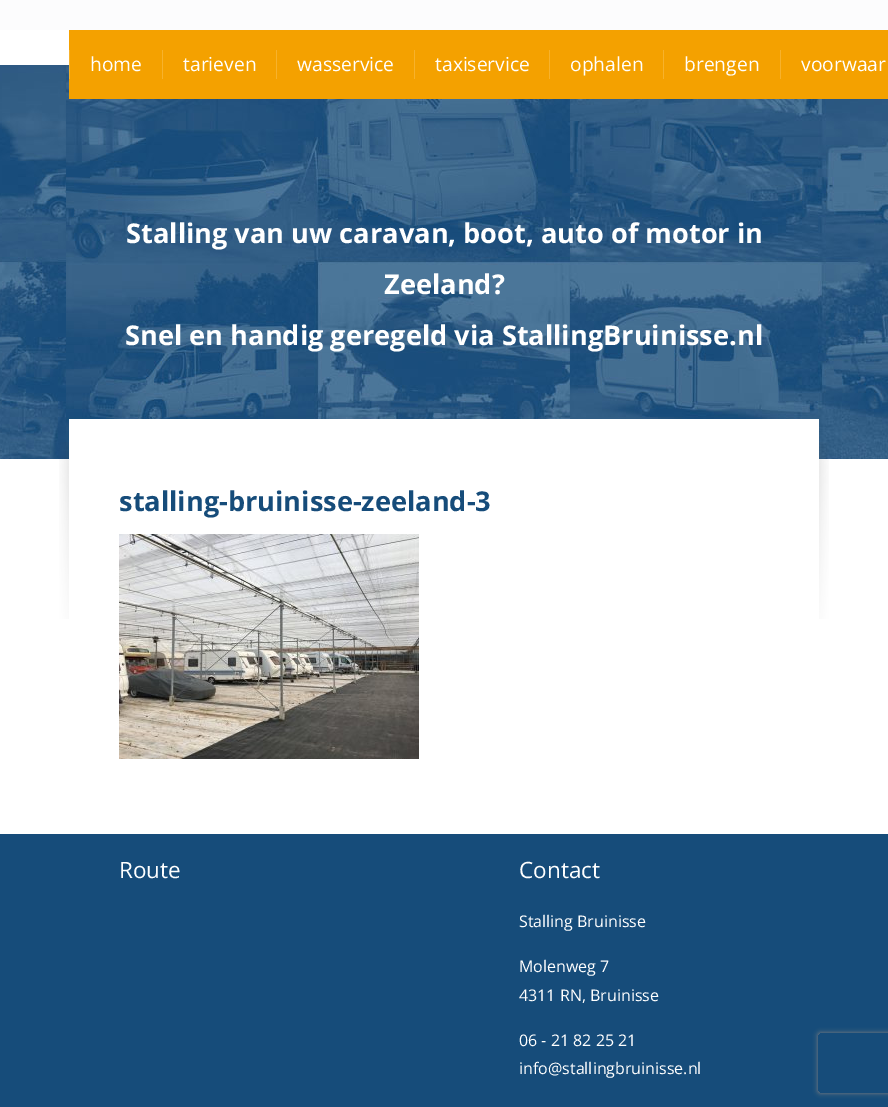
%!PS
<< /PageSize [888 1107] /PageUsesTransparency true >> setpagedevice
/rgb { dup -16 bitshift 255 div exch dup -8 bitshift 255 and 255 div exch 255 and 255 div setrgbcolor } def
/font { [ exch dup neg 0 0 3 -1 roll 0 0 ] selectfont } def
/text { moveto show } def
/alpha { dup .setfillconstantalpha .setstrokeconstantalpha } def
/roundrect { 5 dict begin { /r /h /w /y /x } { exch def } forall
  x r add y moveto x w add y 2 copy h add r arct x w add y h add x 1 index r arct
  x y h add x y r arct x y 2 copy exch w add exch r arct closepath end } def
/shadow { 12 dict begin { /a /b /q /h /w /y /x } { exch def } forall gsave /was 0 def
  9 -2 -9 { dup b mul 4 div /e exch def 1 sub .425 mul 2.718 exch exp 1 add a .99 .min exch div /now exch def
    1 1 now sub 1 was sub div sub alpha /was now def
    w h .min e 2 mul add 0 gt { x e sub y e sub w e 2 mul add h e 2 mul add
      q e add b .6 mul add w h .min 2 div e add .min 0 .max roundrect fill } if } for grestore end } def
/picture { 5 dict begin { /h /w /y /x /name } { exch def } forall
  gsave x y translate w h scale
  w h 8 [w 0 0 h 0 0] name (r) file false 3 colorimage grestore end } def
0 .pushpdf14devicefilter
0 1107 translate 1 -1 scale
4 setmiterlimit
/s1 { /OpenSans-Regular 19.25 font 16#FFFFFF rgb } def
/s2 { /OpenSans-Bold 27.2 font 16#FFFFFF rgb } def
/s3 { /OpenSans-Bold 27.2 font 16#164C7A rgb } def
/s4 { /OpenSans-Regular 22.5 font 16#FFFFFF rgb } def
/s5 { /OpenSans-Regular 16 font 16#FFFFFF rgb } def
16#FFFFFF rgb
0 0 888 1107 rectfill
16#FCFCFD rgb
0 0 888 30 rectfill
(pic1.raw) 0 65 888 354 picture
16#F4A100 rgb
69 30 819 69 rectfill
16#F7B22C rgb
69 50 1 29 rectfill
s1
(home) 90 71 text
16#F7B22C rgb
162 50 1 29 rectfill
s1
(tarieven) 183 71 text
16#F7B22C rgb
276 50 1 29 rectfill
s1
(wasservice) 297 71 text
16#F7B22C rgb
414 50 1 29 rectfill
s1
(taxiservice) 435 71 text
16#F7B22C rgb
549 50 1 29 rectfill
s1
(ophalen) 570 71 text
16#F7B22C rgb
663 50 1 29 rectfill
s1
(brengen) 684 71 text
16#F7B22C rgb
780 50 1 29 rectfill
s1
(voorwaar) 801 71 text
s2
(Stalling van uw caravan, boot, auto of motor in) 126 243 text
(Zeeland?) 384 294 text
(Snel en handig geregeld via StallingBruinisse.nl) 125 345 text
(pic2.raw) 0 419 888 40 picture
69 419 750 40 rectfill
(pic3.raw) 59 442 10 177 picture
s3
(stalling-bruinisse-zeeland-3) 119 511 text
(pic4.raw) 119 534 300 225 picture
(pic5.raw) 819 442 10 177 picture
0 834 888 273 rectfill
s4
(Route) 119 878 text
(Contact) 519 878 text
s5
(Stalling Bruinisse) 519 927 text
(Molenweg 7) 519 972 text
(4311 RN, Bruinisse) 519 1001 text
(06 - 21 82 25 21) 519 1046 text
(info@stallingbruinisse.nl) 519 1074 text
gsave
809 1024 moveto 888 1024 lineto 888 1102 lineto 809 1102 lineto closepath 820 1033 moveto 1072 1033 lineto 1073 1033 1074 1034 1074 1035 curveto 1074 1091 lineto 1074 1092 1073 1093 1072 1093 curveto 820 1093 lineto 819 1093 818 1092 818 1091 curveto 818 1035 lineto 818 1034 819 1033 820 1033 curveto closepath eoclip newpath
16#808080 rgb
818 1033 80 60 2 2.5 1 shadow
grestore
.poppdf14devicefilter showpage
